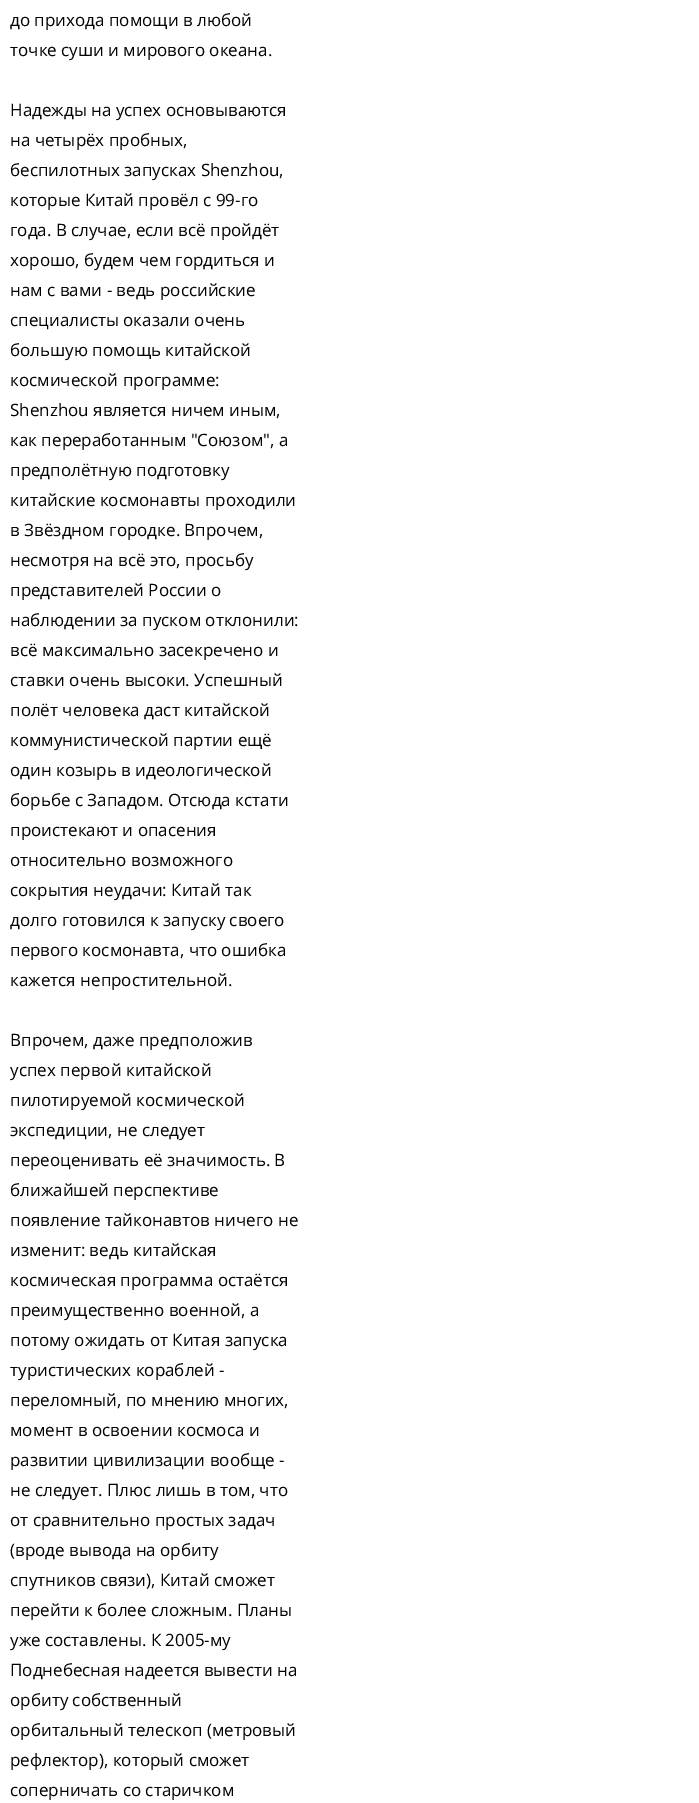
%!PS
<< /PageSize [699 1803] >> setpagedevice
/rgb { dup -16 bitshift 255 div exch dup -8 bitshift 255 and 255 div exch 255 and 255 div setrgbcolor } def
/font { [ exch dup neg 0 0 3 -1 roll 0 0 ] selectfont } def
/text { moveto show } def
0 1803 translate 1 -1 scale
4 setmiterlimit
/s1 { /OpenSans-Regular 17 font 16#000000 rgb } def
16#FFFFFF rgb
0 0 699 1803 rectfill
s1
(до прихода помощи в любой) 10 26 text
(точке суши и мирового океана.) 10 56 text
(Надежды на успех основываются) 10 116 text
(на четырёх пробных,) 10 146 text
(беспилотных запусках Shenzhou,) 10 176 text
(которые Китай провёл с 99-го) 10 206 text
(года. В случае, если всё пройдёт) 10 236 text
(хорошо, будем чем гордиться и) 10 266 text
(нам с вами - ведь российские) 10 296 text
(специалисты оказали очень) 10 326 text
(большую помощь китайской) 10 356 text
(космической программе:) 10 386 text
(Shenzhou является ничем иным,) 10 416 text
(как переработанным "Союзом", а) 10 446 text
(предполётную подготовку) 10 476 text
(китайские космонавты проходили) 10 506 text
(в Звёздном городке. Впрочем,) 10 536 text
(несмотря на всё это, просьбу) 10 566 text
(представителей России о) 10 596 text
(наблюдении за пуском отклонили:) 10 626 text
(всё максимально засекречено и) 10 656 text
(ставки очень высоки. Успешный) 10 686 text
(полёт человека даст китайской) 10 716 text
(коммунистической партии ещё) 10 746 text
(один козырь в идеологической) 10 776 text
(борьбе с Западом. Отсюда кстати) 10 806 text
(проистекают и опасения) 10 836 text
(относительно возможного) 10 866 text
(сокрытия неудачи: Китай так) 10 896 text
(долго готовился к запуску своего) 10 926 text
(первого космонавта, что ошибка) 10 956 text
(кажется непростительной.) 10 986 text
(Впрочем, даже предположив) 10 1046 text
(успех первой китайской) 10 1076 text
(пилотируемой космической) 10 1106 text
(экспедиции, не следует) 10 1136 text
(переоценивать её значимость. В) 10 1166 text
(ближайшей перспективе) 10 1196 text
(появление тайконавтов ничего не) 10 1226 text
(изменит: ведь китайская) 10 1256 text
(космическая программа остаётся) 10 1286 text
(преимущественно военной, а) 10 1316 text
(потому ожидать от Китая запуска) 10 1346 text
(туристических кораблей -) 10 1376 text
(переломный, по мнению многих,) 10 1406 text
(момент в освоении космоса и) 10 1436 text
(развитии цивилизации вообще -) 10 1466 text
(не следует. Плюс лишь в том, что) 10 1496 text
(от сравнительно простых задач) 10 1526 text
(\(вроде вывода на орбиту) 10 1556 text
(спутников связи\), Китай сможет) 10 1586 text
(перейти к более сложным. Планы) 10 1616 text
(уже составлены. К 2005-му) 10 1646 text
(Поднебесная надеется вывести на) 10 1676 text
(орбиту собственный) 10 1706 text
(орбитальный телескоп \(метровый) 10 1736 text
(рефлектор\), который сможет) 10 1766 text
(соперничать со старичком) 10 1796 text
showpage
